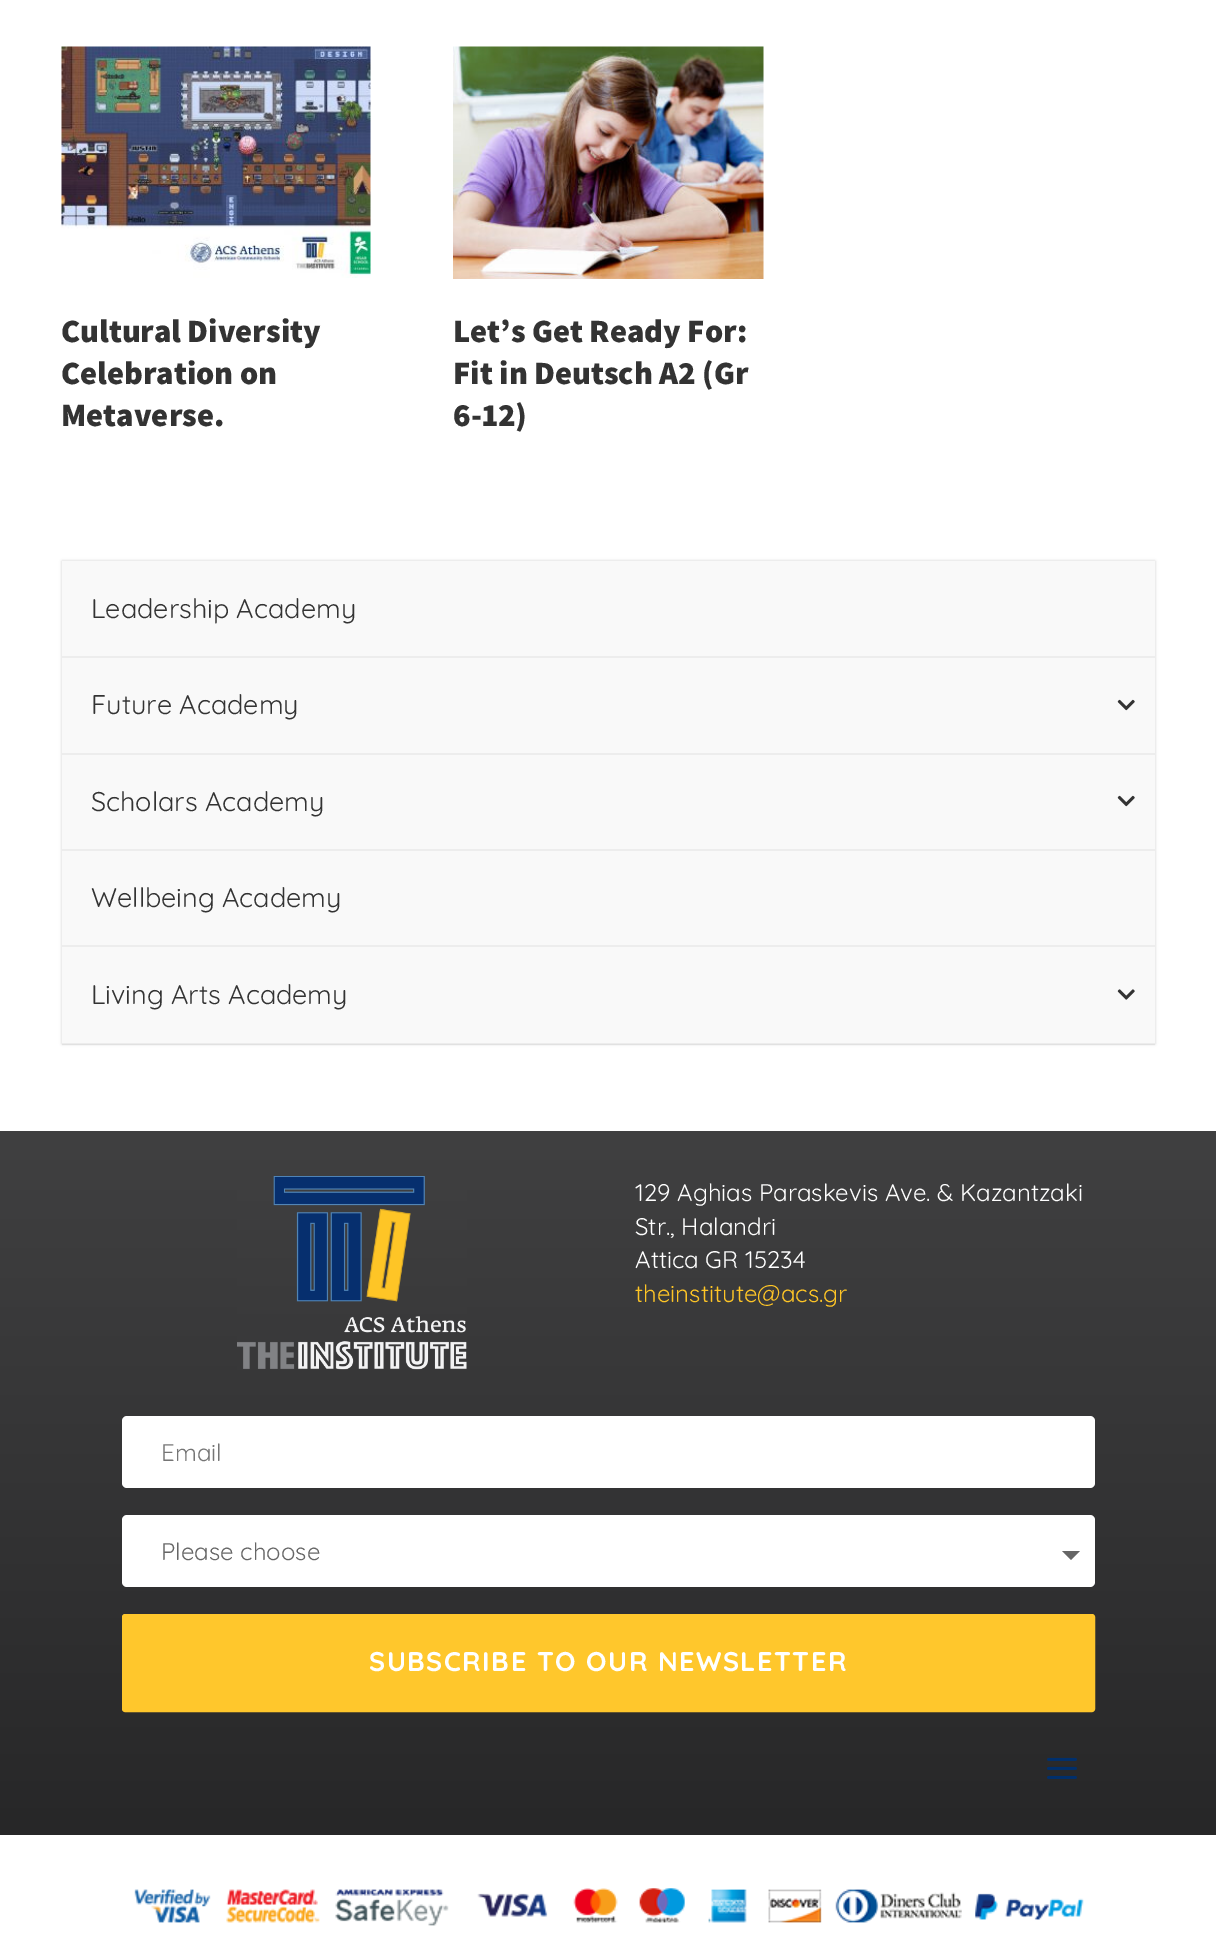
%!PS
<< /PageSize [1216 1934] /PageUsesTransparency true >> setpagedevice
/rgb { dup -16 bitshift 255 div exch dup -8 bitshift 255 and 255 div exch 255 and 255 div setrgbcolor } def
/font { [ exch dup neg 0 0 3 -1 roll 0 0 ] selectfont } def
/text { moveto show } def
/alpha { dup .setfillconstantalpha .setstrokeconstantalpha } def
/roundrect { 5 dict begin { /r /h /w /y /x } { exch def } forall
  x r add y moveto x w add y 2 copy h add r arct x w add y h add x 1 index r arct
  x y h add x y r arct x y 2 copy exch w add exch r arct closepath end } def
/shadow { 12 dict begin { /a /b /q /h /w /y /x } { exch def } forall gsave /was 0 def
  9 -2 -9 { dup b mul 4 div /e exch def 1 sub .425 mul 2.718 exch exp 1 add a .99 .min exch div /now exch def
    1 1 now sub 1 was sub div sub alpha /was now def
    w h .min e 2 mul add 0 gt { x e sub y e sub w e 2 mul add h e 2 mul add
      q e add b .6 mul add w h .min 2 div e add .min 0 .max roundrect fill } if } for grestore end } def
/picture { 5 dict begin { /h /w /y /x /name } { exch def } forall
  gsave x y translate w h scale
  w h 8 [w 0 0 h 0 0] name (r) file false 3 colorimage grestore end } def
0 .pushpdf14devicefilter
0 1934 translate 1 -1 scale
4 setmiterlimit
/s1 { /Assistant-ExtraLight 32.5 font 16#333333 rgb } def
/s2 { /Quicksand-Light 27 font 16#333333 rgb } def
/s3 { /Quicksand-Light 24 font 16#FFFFFF rgb } def
/s4 { /Quicksand-Light 24 font 16#FEC526 rgb } def
/s5 { /Quicksand-Light 24 font 16#757575 rgb } def
/s6 { /Quicksand-Light 24 font 16#666666 rgb } def
16#FFFFFF rgb
0 0 1216 1934 rectfill
(pic1.raw) 61 46 310 232 picture
s1
(Cultural Diversity) 61 342 text
(Celebration on) 61 384 text
(Metaverse.) 61 426 text
(pic2.raw) 453 46 311 233 picture
(Let’s Get Ready For:) 453 342 text
(Fit in Deutsch A2 \(Gr) 453 384 text
(6-12\)) 453 426 text
16#000000 rgb
62 561 1093 483 0 1.5 0.17 shadow
16#F9F9F9 rgb
62 561 1093 483 rectfill
16#EDEDED rgb
62 656 1093 2 rectfill
s2
(Leadership Academy) 91 618 text
16#EDEDED rgb
62 753 1093 2 rectfill
s2
(Future Academy) 91 714 text
(pic3.raw) 1117 699 18 12 picture
16#EDEDED rgb
62 849 1093 2 rectfill
s2
(Scholars Academy) 91 811 text
(pic3.raw) 1117 795 18 12 picture
16#EDEDED rgb
62 945 1093 2 rectfill
s2
(Wellbeing Academy) 91 907 text
0.05 alpha
16#000000 rgb
62 1043 1093 2 rectfill
1 alpha
s2
(Living Arts Academy) 91 1004 text
(pic4.raw) 1117 989 18 11 picture
gsave 0 1131 moveto 1216 1131 lineto 1216 1835 lineto 0 1835 lineto closepath clip newpath
<< /ShadingType 2 /ColorSpace /DeviceRGB /Coords [608 1131 608 1835] /Extend [true true] /Function << /FunctionType 2 /Domain [0 1] /C0 [0.251 0.251 0.255] /C1 [0.153 0.153 0.157] /N 1 >> >> shfill grestore
(pic5.raw) 237 1176 230 194 picture
s3
(129 Aghias Paraskevis Ave. & Kazantzaki) 635 1201 text
(Str., Halandri) 635 1235 text
(Attica GR 15234) 635 1268 text
s4
(theinstitute@acs.gr) 635 1302 text
16#FFFFFF rgb
122 1416 973 72 5 roundrect fill
s5
(Email) 161 1461 text
16#FFFFFF rgb
122 1515 973 72 5 roundrect fill
s6
(Please choose) 161 1560 text
1062 1551 moveto 1080 1551 lineto 1071 1560 lineto closepath fill
16#FFC72C rgb
123.5 1615.5 970 95 1.5 roundrect gsave fill grestore
3 setlinewidth
stroke
/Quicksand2-Light 27 font
16#FFFFFF rgb
369 1671 moveto 1.5 0 (SUBSCRIBE TO OUR NEWSLETTER) ashow
(pic6.raw) 1047 1757 30 22 picture
(pic7.raw) 134 1888 950 38 picture
.poppdf14devicefilter showpage
